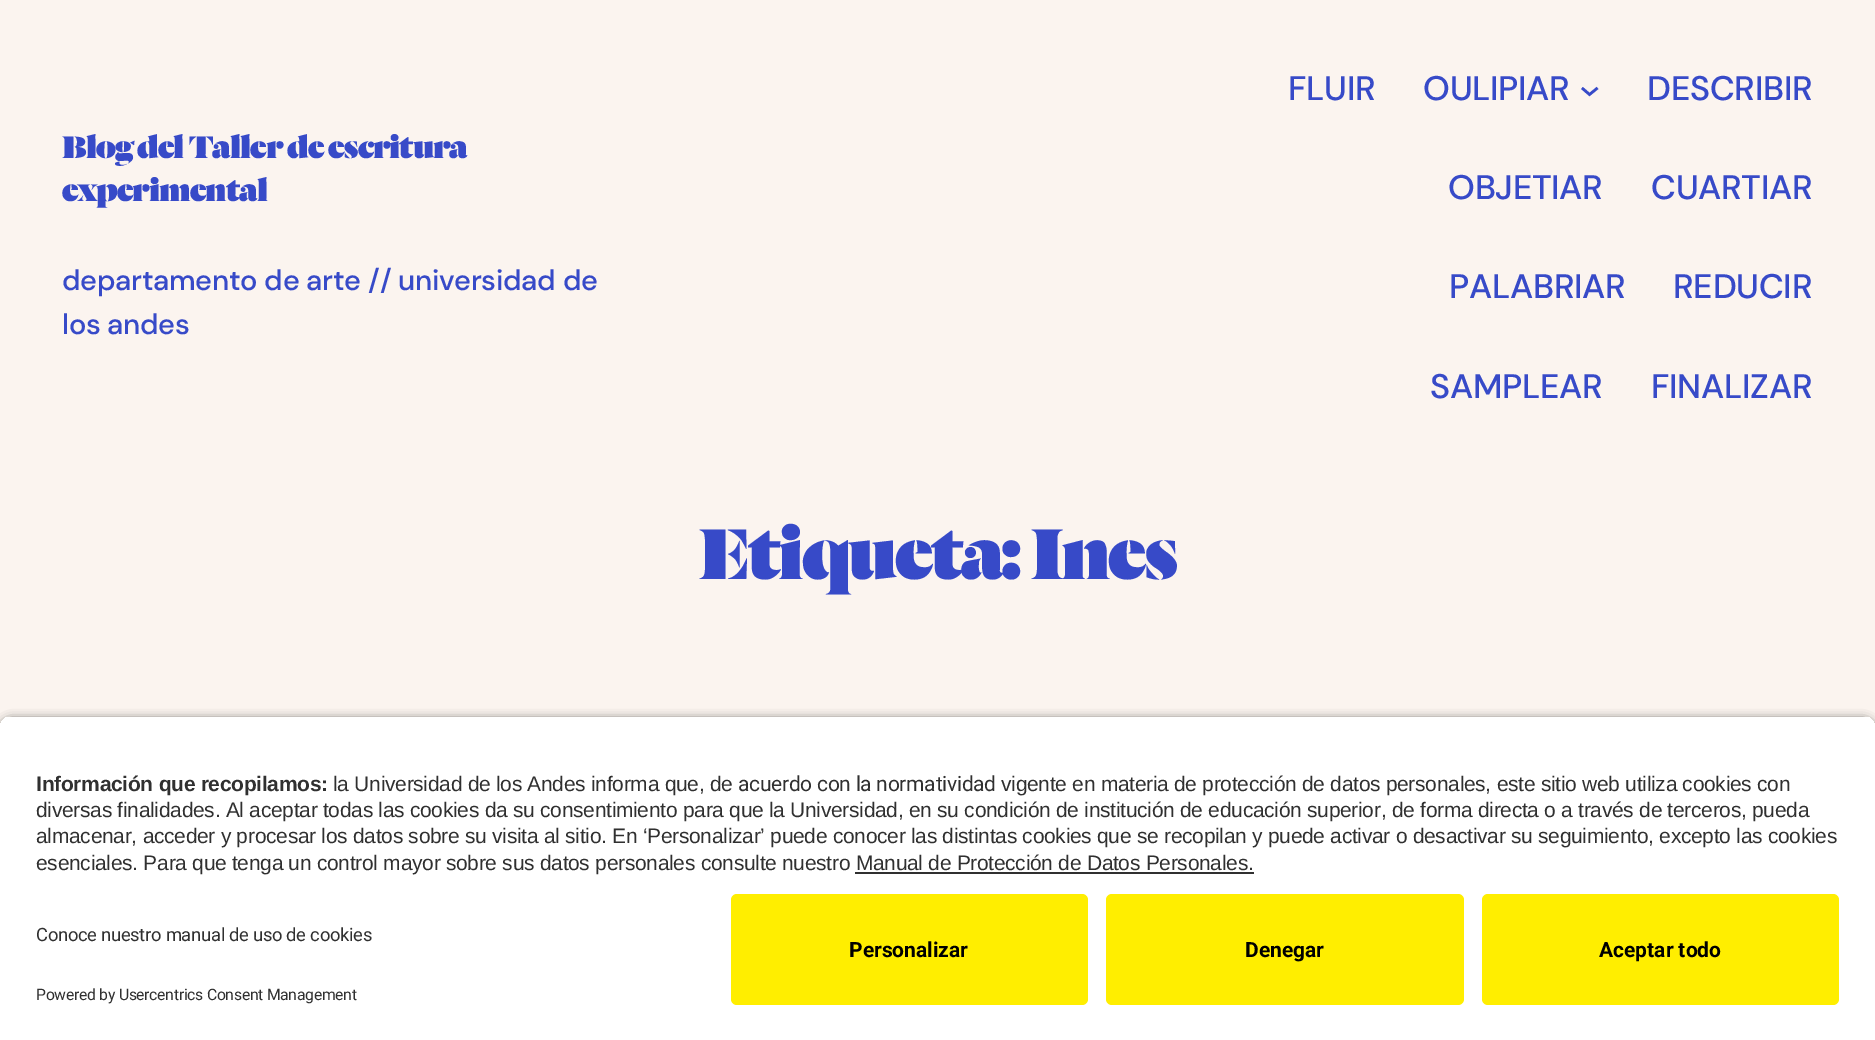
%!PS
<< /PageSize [1875 1040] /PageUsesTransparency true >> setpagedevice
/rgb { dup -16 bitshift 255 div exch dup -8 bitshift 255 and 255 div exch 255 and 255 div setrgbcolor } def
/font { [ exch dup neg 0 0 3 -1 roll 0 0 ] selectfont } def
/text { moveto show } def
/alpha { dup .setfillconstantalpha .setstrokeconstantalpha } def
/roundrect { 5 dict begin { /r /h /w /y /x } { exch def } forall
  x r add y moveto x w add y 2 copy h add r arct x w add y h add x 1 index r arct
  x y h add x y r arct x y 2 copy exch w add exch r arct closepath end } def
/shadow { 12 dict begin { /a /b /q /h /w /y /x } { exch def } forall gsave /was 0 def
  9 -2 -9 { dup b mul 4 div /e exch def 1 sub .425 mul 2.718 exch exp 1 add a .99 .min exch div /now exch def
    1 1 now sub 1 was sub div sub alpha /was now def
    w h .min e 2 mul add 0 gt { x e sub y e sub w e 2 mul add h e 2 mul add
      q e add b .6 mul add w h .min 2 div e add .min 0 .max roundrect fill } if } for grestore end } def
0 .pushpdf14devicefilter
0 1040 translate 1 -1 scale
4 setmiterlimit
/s1 { /Roboto-Bold 21 font 16#000000 rgb } def
16#FBF4EF rgb
0 0 1875 1040 rectfill
/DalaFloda-Black 34.1 font
16#374AC8 rgb
62 158 moveto -1 0 (Blog del Taller de escritura) ashow
62 201 moveto -1 0 (experimental) ashow
/DMSans-Medium 29 font
62 290 moveto -0.29 0 (departamento de arte // universidad de) ashow
62 334 moveto -0.29 0 (los andes) ashow
/DMSans-Medium 34.1 font
1288 100 moveto -0.29 0 (FLUIR) ashow
1423 100 moveto -0.29 0 (OULIPIAR) ashow
2.6 setlinewidth
1582 88 moveto 1589.5 94.5 lineto 1597.5 88 lineto stroke
1647 100 moveto -0.29 0 (DESCRIBIR) ashow
1448 199 moveto -0.29 0 (OBJETIAR) ashow
1651 199 moveto -0.29 0 (CUARTIAR) ashow
1449 298 moveto -0.29 0 (PALABRIAR) ashow
1673 298 moveto -0.29 0 (REDUCIR) ashow
1430 398 moveto -0.29 0 (SAMPLEAR) ashow
1651 398 moveto -0.29 0 (FINALIZAR) ashow
/DalaFloda-Black 78.5 font
699 579 moveto -2.4 0 (Etiqueta: Ines) ashow
16#000000 rgb
0 720 1875 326 12 5 0.8 shadow
gsave
12 716 moveto 1863 716 lineto 1869.5 716 1875 721.5 1875 728 curveto 1875 882 lineto 0 882 lineto 0 728 lineto 0 721.5 5.5 716 12 716 curveto closepath clip newpath
16#FFFFFF rgb
0 717 1875 165 rectfill
grestore
/LiberationSans-Bold 21 font
16#303030 rgb
36 791 moveto -0.29 0 (Información que recopilamos:) ashow
/LiberationSans-Regular 21 font
333 791 moveto -0.29 0 (la Universidad de los Andes informa que, de) ashow
/Roboto-Regular 21 font
738 791 moveto -0.29 0 (acuerdo con la normatividad) ashow
/LiberationSans-Regular 21 font
1001 791 moveto -0.29 0 (vigente en materia de protección de datos personales, este sitio web utiliza cookies con) ashow
36 817 moveto -0.29 0 (diversas finalidades. Al aceptar todas las cookies da su consentimiento para que la Universidad, en su condición de institución de educación superior, de forma directa o a través de terceros, pueda) ashow
36 843 moveto -0.29 0 (almacenar, acceder y procesar los datos sobre su visita al sitio. En ‘Personalizar’ puede conocer las distintas cookies que se recopilan y puede activar o desactivar su seguimiento, excepto las cookies) ashow
36 870 moveto -0.29 0 (esenciales. Para que tenga un control mayor sobre sus datos personales consulte nuestro Manual de Protección de Datos Personales.) ashow
855 872 399 2 rectfill
16#FFFFFF rgb
0 882 1875 158 rectfill
/Roboto-Regular 18.4 font
16#303030 rgb
36 941 moveto -0.29 0 (Conoce nuestro manual de uso de cookies) ashow
/Roboto-Regular 15.75 font
36 1000 moveto -0.29 0 (Powered by Usercentrics Consent Management) ashow
16#FFEE00 rgb
731 894 357 111 6 roundrect fill
s1
(Personalizar) 849 957 text
16#FFEE00 rgb
1106 894 358 111 6 roundrect fill
s1
(Denegar) 1245 957 text
16#FFEE00 rgb
1482 894 357 111 6 roundrect fill
s1
(Aceptar todo) 1599 957 text
.poppdf14devicefilter showpage
